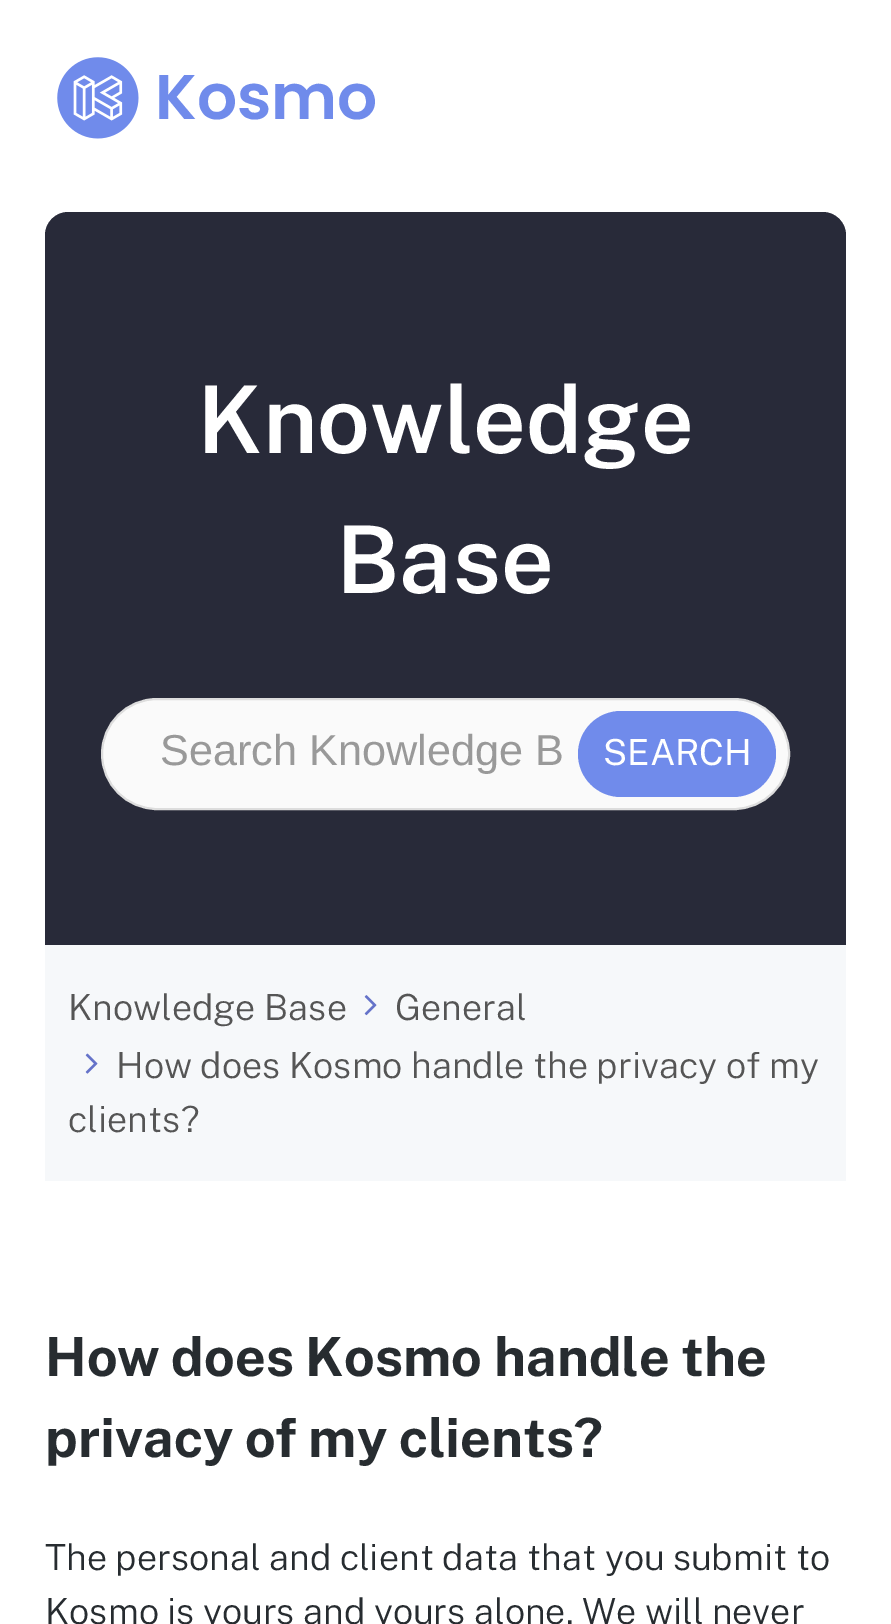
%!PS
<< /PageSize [891 1624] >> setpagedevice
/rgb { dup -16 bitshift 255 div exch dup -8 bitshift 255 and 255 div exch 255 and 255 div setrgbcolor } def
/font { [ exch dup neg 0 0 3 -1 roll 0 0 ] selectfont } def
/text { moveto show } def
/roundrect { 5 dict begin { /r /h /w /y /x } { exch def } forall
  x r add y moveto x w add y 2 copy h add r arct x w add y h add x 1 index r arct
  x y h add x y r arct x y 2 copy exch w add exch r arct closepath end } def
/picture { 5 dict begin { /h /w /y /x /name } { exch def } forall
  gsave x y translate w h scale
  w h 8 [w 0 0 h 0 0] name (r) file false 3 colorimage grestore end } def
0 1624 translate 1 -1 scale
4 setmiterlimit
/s1 { /Poppins-SemiBold 63 font 16#708BEB rgb } def
/s2 { /PublicSans-SemiBold 93.5 font 16#FFFFFF rgb } def
/s3 { /LiberationSans-Regular 43.25 font 16#999999 rgb } def
/s4 { /PublicSans-Regular 36 font 16#FFFFFF rgb } def
/s5 { /PublicSans-Light 36 font 16#555555 rgb } def
/s6 { /PublicSans-Bold 54 font 16#272C30 rgb } def
/s7 { /PublicSans-Light 36 font 16#272C30 rgb } def
16#FFFFFF rgb
0 0 891 1624 rectfill
(pic1.raw) 57 57 82 82 picture
s1
(Kosmo) 155 119 text
16#282A39 rgb
68 212 moveto 823 212 lineto 835.5 212 846 222.5 846 235 curveto 846 945 lineto 45 945 lineto 45 235 lineto 45 222.5 55.5 212 68 212 curveto closepath fill
s2
(Knowledge) 197 453 text
(Base) 336 593 text
16#FAFAFA rgb
102 699 687 110 55 roundrect gsave fill grestore
16#DDDDDD rgb
2 setlinewidth
stroke
s3
(Search Knowledge B) 160 765 text
16#708BEB rgb
578 711 198 86 43 roundrect fill
s4
(SEARCH) 603 765 text
16#F6F8FA rgb
45 945 801 236 rectfill
s5
(Knowledge Base) 68 1020 text
(pic2.raw) 364 995 13 21 picture
(General) 395 1020 text
(pic3.raw) 85 1053 13 21 picture
(How does Kosmo handle the privacy of my) 116 1078 text
(clients?) 68 1132 text
s6
(How does Kosmo handle the) 45 1376 text
(privacy of my clients?) 45 1457 text
s7
(The personal and client data that you submit to) 45 1570 text
(Kosmo is yours and yours alone. We will never) 45 1624 text
showpage
